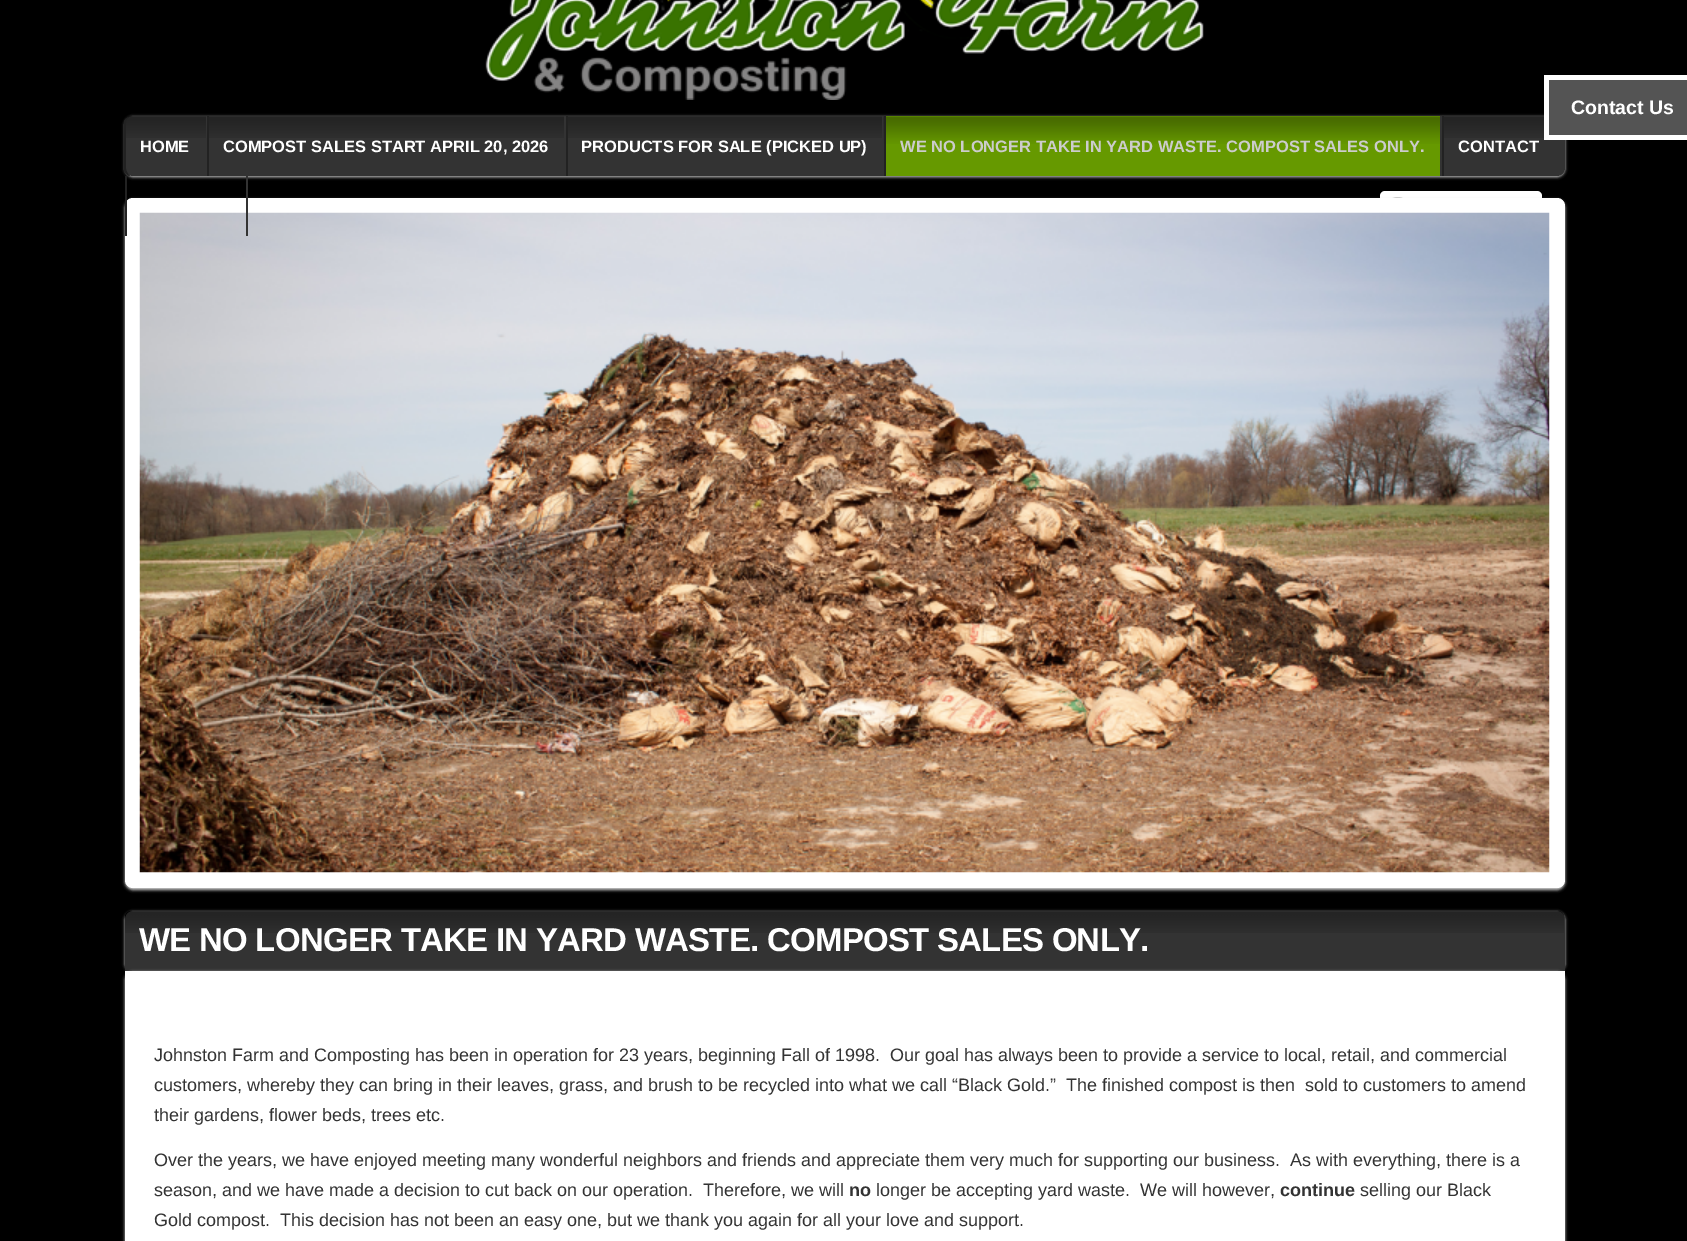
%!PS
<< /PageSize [1687 1241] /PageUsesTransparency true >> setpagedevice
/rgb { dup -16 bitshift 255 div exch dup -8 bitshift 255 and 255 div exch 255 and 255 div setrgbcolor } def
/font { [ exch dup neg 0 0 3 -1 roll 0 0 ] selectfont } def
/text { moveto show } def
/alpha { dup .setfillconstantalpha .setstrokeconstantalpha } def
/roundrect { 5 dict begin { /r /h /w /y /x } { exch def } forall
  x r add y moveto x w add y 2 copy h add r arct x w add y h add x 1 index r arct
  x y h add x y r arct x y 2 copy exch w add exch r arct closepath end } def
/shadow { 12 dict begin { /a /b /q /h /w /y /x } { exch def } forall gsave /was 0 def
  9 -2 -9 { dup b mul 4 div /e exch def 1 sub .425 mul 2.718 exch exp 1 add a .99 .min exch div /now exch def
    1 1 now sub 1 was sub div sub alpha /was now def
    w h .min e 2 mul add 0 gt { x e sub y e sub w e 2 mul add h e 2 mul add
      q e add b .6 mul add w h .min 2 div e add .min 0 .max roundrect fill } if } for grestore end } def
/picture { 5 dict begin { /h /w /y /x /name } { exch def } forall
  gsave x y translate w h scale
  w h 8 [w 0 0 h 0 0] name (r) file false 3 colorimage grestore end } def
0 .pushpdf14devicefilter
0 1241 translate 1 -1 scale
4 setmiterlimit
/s1 { /LiberationSans-Bold 19.5 font 16#FFFFFF rgb } def
/s2 { /LiberationSans-Bold 16.5 font 16#FFFFFF rgb } def
/s3 { /LiberationSans-Bold 16.5 font 16#CCCCCC rgb } def
/s4 { /LiberationSans-Regular 18 font 16#333333 rgb } def
/s5 { /LiberationSans-Bold 18 font 16#333333 rgb } def
16#000000 rgb
0 0 1687 1241 rectfill
16#CCCCCC rgb
125 117 1440 60 8 1.5 1 shadow
16#333333 rgb
125 116 1440 60 8 roundrect fill
16#545454 rgb
1549 80 138 55 rectfill
16#FFFFFF rgb
1544 75 143 5 rectfill
1544 135 143 5 rectfill
1544 75 5 65 rectfill
s1
(Contact Us) 1571 114 text
(pic1.raw) 485 0 719 100 picture
(pic2.raw) 125 116 1419 22 picture
16#333333 rgb
206 116 1 22 rectfill
16#222222 rgb
132 116 moveto 129 116 126 119 126 123 curveto 126 168 lineto 126 171 128 174 130 176 curveto 129 176 lineto 127 175 125 173 124 171 curveto 124 121 lineto 126 118 129 116 132 116 curveto closepath fill
s2
(HOME) 140 152 text
16#333333 rgb
564 116 2 22 rectfill
16#222222 rgb
207 116 2 60 rectfill
s2
(COMPOST SALES START APRIL 20, 2026) 223 152 text
16#333333 rgb
882 116 2 22 rectfill
16#222222 rgb
566 116 2 60 rectfill
s2
(PRODUCTS FOR SALE \(PICKED UP\)) 581 152 text
16#669900 rgb
886 116 554 60 rectfill
(pic3.raw) 883 116 557 28 picture
16#333333 rgb
1440 116 2 22 rectfill
16#222222 rgb
884 116 2 60 rectfill
s3
(WE NO LONGER TAKE IN YARD WASTE. COMPOST SALES ONLY.) 900 152 text
16#222222 rgb
1442 116 2 60 rectfill
s2
(CONTACT) 1458 152 text
1380 191 162 33 5 roundrect fill
(pic4.raw) 1392 197 11 1 picture
16#CCCCCC rgb
125 200 1440 690 8 1.5 1 shadow
16#FFFFFF rgb
125 198 1440 690 8 roundrect fill
(pic5.raw) 139 212 1411 661 picture
16#333333 rgb
246 176 2 60 rectfill
16#222222 rgb
125 176 2 60 rectfill
16#CCCCCC rgb
125 912 1440 60 8 1.5 1 shadow
16#333333 rgb
133 911 moveto 1557 911 lineto 1561.5 911 1565 914.5 1565 919 curveto 1565 971 lineto 125 971 lineto 125 919 lineto 125 914.5 128.5 911 133 911 curveto closepath fill
(pic6.raw) 125 911 1439 22 picture
/LiberationSans-Bold 33 font
16#FFFFFF rgb
139 951 moveto -0.75 0 (WE NO LONGER TAKE IN YARD WASTE. COMPOST SALES ONLY.) ashow
16#CCCCCC rgb
125 972 1440 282 8 1.5 1 shadow
16#FFFFFF rgb
125 971 1440 270 rectfill
s4
(Johnston Farm and Composting has been in operation for 23 years, beginning Fall of 1998.  Our goal has always been to provide a service to local, retail, and commercial) 154 1061 text
(customers, whereby they can bring in their leaves, grass, and brush to be recycled into what we call “Black Gold.”  The finished compost is then  sold to customers to amend) 154 1091 text
(their gardens, flower beds, trees etc.) 154 1121 text
(Over the years, we have enjoyed meeting many wonderful neighbors and friends and appreciate them very much for supporting our business.  As with everything, there is a) 154 1166 text
(season, and we have made a decision to cut back on our operation.  Therefore, we will) 154 1196 text
s5
(no) 849 1196 text
s4
(longer be accepting yard waste.  We will however,) 876 1196 text
s5
(continue) 1280 1196 text
s4
(selling our Black) 1360 1196 text
(Gold compost.  This decision has not been an easy one, but we thank you again for all your love and support.) 154 1226 text
.poppdf14devicefilter showpage
